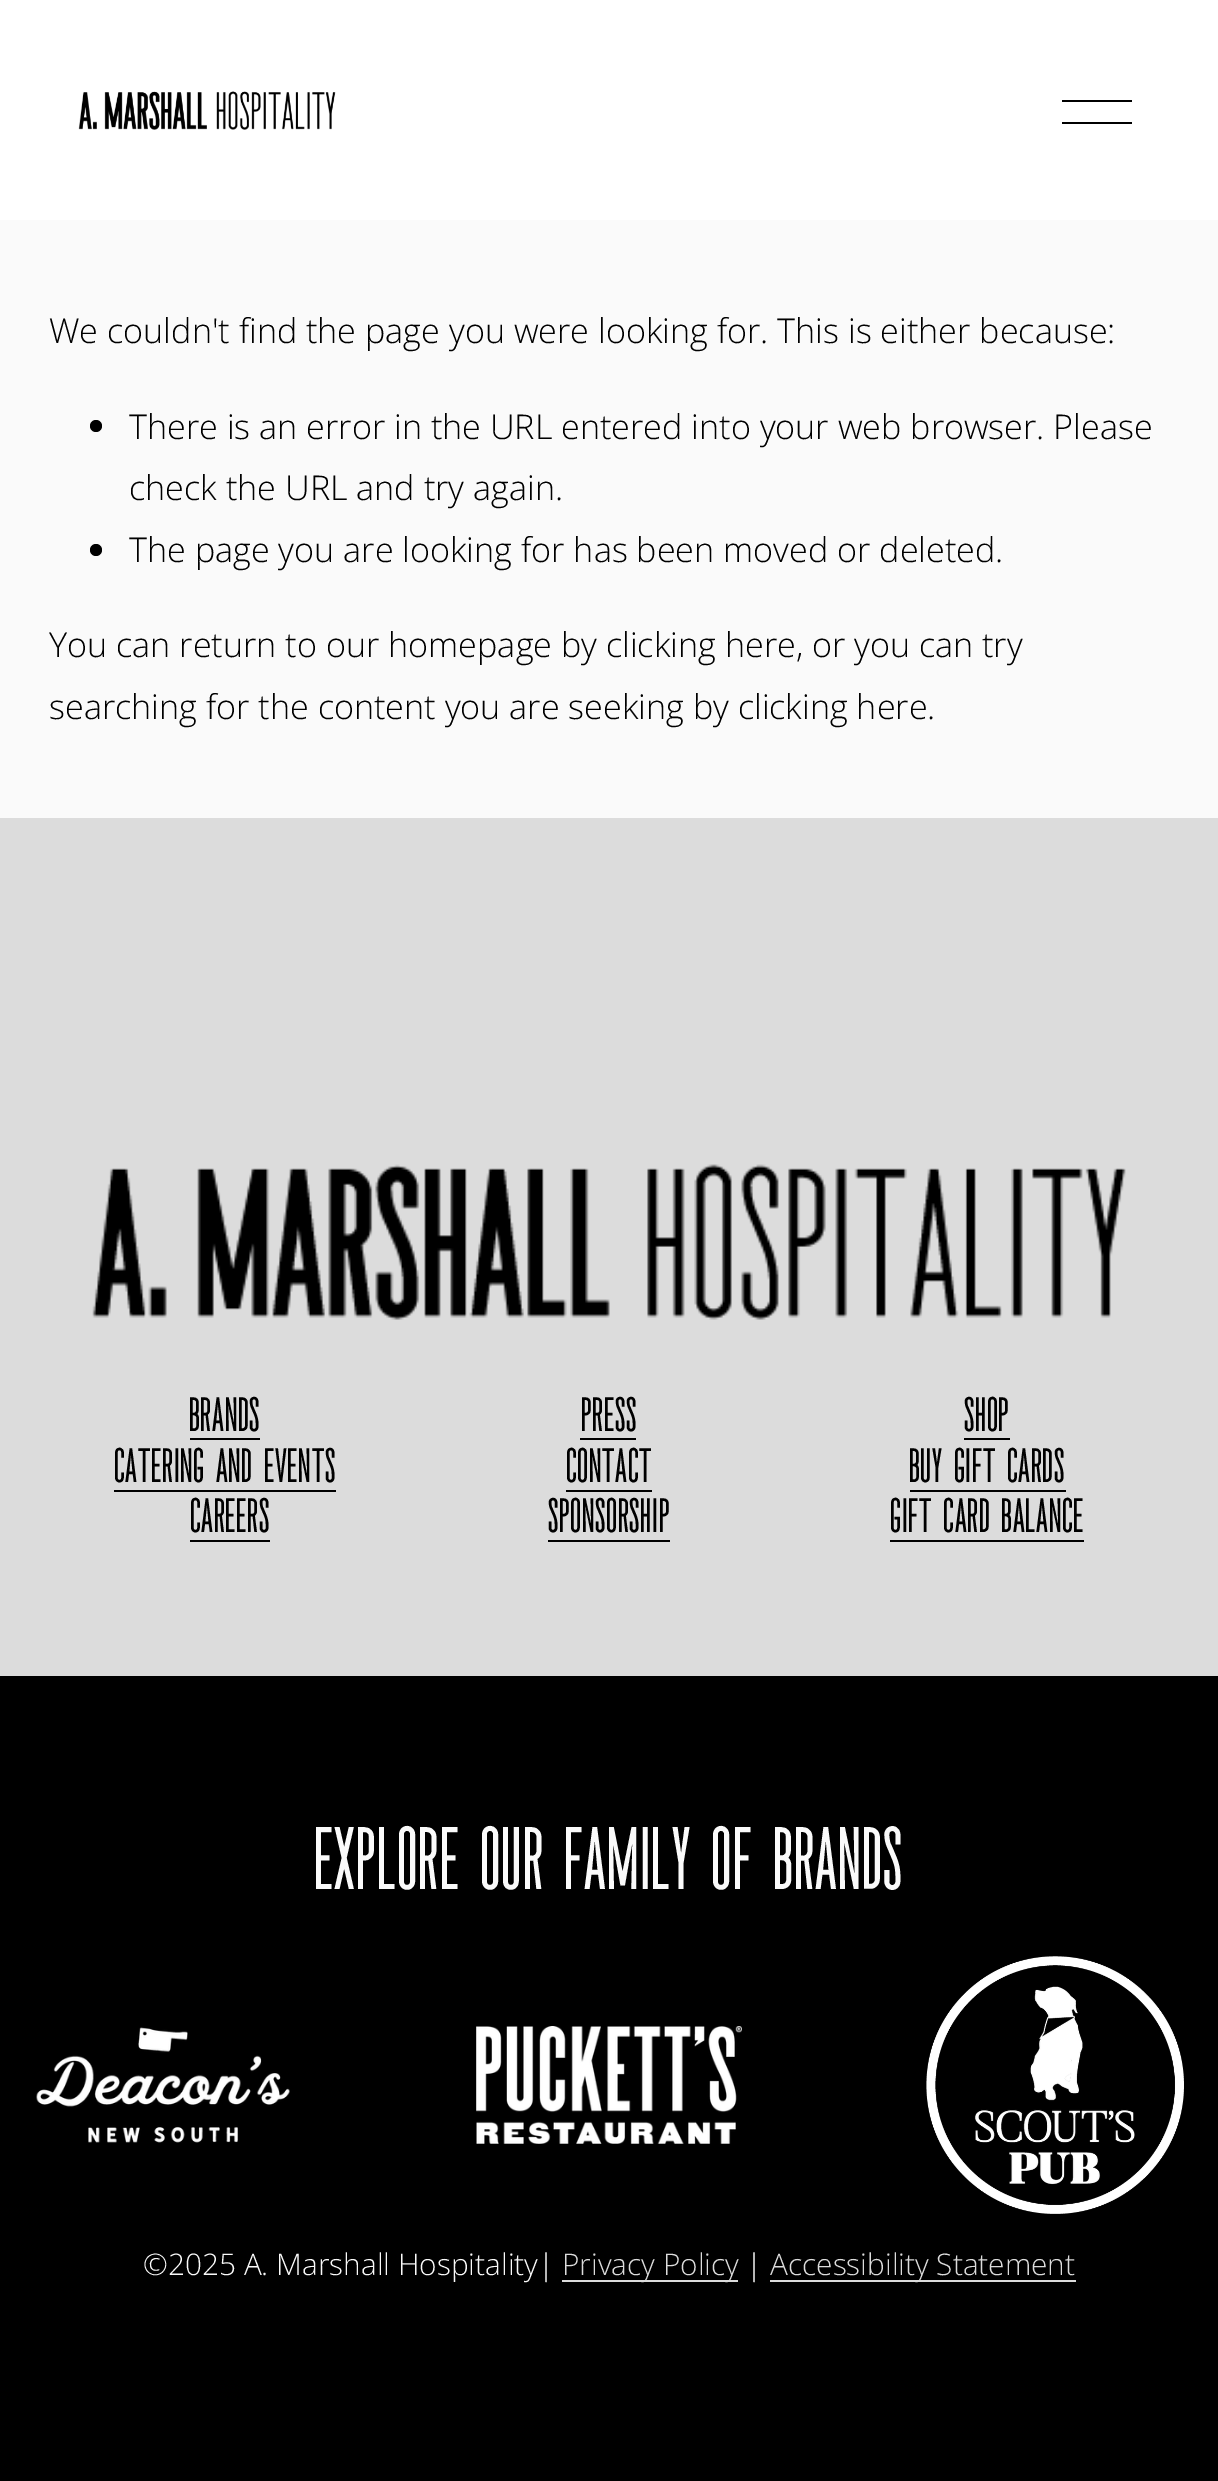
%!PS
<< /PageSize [1218 2481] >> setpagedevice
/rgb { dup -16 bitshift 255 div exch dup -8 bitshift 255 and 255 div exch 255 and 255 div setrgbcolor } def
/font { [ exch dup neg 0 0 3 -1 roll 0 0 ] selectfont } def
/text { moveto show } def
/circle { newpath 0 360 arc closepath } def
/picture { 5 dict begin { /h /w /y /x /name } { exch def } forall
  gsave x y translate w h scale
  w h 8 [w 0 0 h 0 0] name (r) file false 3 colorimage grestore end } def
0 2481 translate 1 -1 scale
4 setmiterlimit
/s1 { /OpenSans-Light 34.15 font 16#000000 rgb } def
/s2 { /OpenSans-Light 29.8 font 16#FAFAFA rgb } def
/s3 { /OpenSans-Light 29.8 font 16#DCDCDC rgb } def
16#FAFAFA rgb
0 0 1218 2481 rectfill
16#FFFFFF rgb
0 0 1218 220 rectfill
(pic1.raw) 78 91 258 39 picture
16#000000 rgb
1062 100 70 2 rectfill
1062 122 70 2 rectfill
s1
(We couldn't find the page you were looking for. This is either because:) 49 343 text
96 426 6 circle fill
(There is an error in the URL entered into your web browser. Please) 129 439 text
(check the URL and try again.) 129 500 text
96 550 6 circle fill
(The page you are looking for has been moved or deleted.) 129 562 text
(You can return to our homepage by clicking here, or you can try) 49 657 text
(searching for the content you are seeking by clicking here.) 49 719 text
16#DCDCDC rgb
0 818 1218 858 rectfill
(pic2.raw) 92 1164 1034 156 picture
/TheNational-Bold 36.25 font
16#000000 rgb
189 1431 moveto 1.8 0 (Brands) ashow
190 1438 70 2 rectfill
114 1482 moveto 1.8 0 (Catering and Events) ashow
114 1490 222 2 rectfill
190 1532 moveto 1.8 0 (Careers) ashow
190 1540 80 2 rectfill
581 1431 moveto 1.8 0 (PRESS) ashow
580 1438 56 2 rectfill
566 1482 moveto 1.8 0 (Contact) ashow
566 1490 86 2 rectfill
548 1532 moveto 1.8 0 (Sponsorship) ashow
548 1540 122 2 rectfill
964 1431 moveto 1.8 0 (Shop) ashow
964 1438 46 2 rectfill
909 1482 moveto 1.8 0 (Buy Gift Cards) ashow
910 1490 156 2 rectfill
890 1532 moveto 1.8 0 (Gift Card Balance) ashow
890 1540 194 2 rectfill
0 1676 1218 805 rectfill
/TheNational-Bold 66.5 font
16#FAFAFA rgb
314 1889 moveto 3.3 0 (Explore Our Family of Brands) ashow
(pic3.raw) 36 2027 254 116 picture
(pic4.raw) 476 2026 266 118 picture
(pic5.raw) 926 1956 258 258 picture
s2
(©2025 A. Marshall Hospitality|) 143 2275 text
16#DCDCDC rgb
562 2280 176 2 rectfill
(Privacy Policy) 562 2275 text
s2
(|) 746 2275 text
16#DCDCDC rgb
770 2280 306 2 rectfill
(Accessibility Statement) 770 2275 text
showpage
